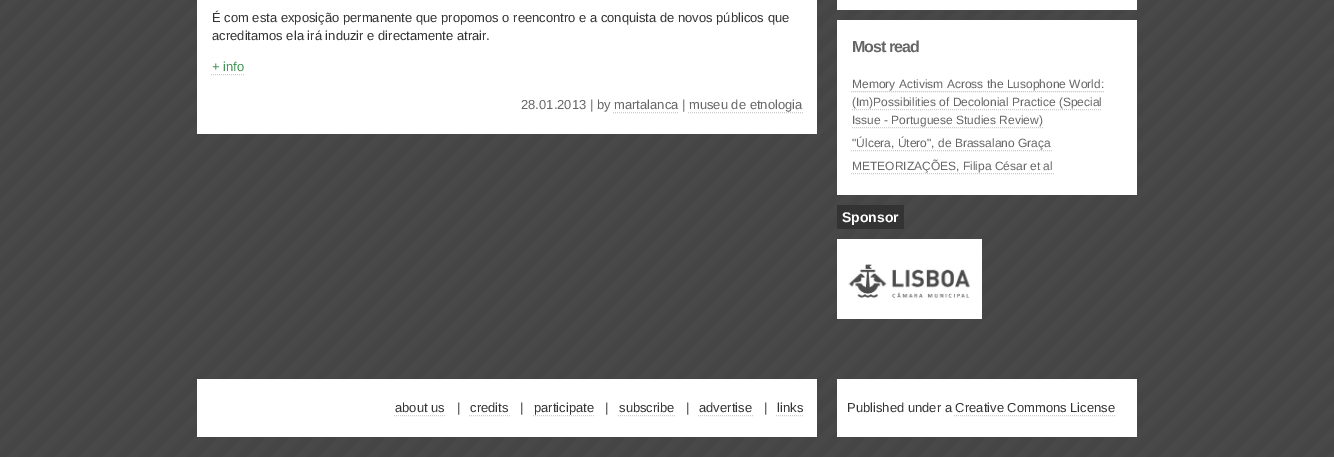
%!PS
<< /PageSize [1334 457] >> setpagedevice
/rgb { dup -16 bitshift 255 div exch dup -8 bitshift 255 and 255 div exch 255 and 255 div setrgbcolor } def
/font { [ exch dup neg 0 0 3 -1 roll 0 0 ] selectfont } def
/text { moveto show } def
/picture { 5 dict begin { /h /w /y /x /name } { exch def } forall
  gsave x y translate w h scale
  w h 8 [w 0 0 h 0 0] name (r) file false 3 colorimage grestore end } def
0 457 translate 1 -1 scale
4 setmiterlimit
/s1 { /LiberationSans-Regular 13 font 16#333333 rgb } def
/s2 { /LiberationSans-Regular 13 font 16#419452 rgb } def
/s3 { /LiberationSans-Regular 13 font 16#666666 rgb } def
/s4 { /LiberationSans-Regular 12 font 16#666666 rgb } def
/s5 { /LiberationSans-Bold 14 font 16#FFFFFF rgb } def
16#FFFFFF rgb
0 0 1334 457 rectfill
(pic1.raw) 0 0 1334 457 picture
197 0 620 134 rectfill
s1
(É com esta exposição permanente que propomos o reencontro e a conquista de novos públicos que) 212 22 text
(acreditamos ela irá induzir e directamente atrair.) 212 40 text
s2
(+ info) 212 71 text
16#CCCCCC rgb
[1 1] 0 setdash
211 74.5 moveto 245 74.5 lineto stroke
s3
(28.01.2013 | by martalanca | museu de etnologia) 521 109 text
16#CCCCCC rgb
613 112.5 moveto 679 112.5 lineto stroke
688 112.5 moveto 803 112.5 lineto stroke
16#FFFFFF rgb
837 0 300 10 rectfill
837 20 300 175 rectfill
/LiberationSans-Bold 16 font
16#666666 rgb
852 52 moveto -1 0 (Most read) ashow
s4
(Memory Activism Across the Lusophone World:) 852 88 text
16#CCCCCC rgb
851 91.5 moveto 1104 91.5 lineto stroke
s4
(\(Im\)Possibilities of Decolonial Practice \(Special) 852 106 text
16#CCCCCC rgb
852 109.5 moveto 1102 109.5 lineto stroke
s4
(Issue - Portuguese Studies Review\)) 852 124 text
16#CCCCCC rgb
852 127.5 moveto 1044 127.5 lineto stroke
s4
("Úlcera, Útero", de Brassalano Graça) 852 147 text
16#CCCCCC rgb
851 150.5 moveto 1052 150.5 lineto stroke
s4
(METEORIZAÇÕES, Filipa César et al) 852 170 text
16#CCCCCC rgb
851 173.5 moveto 1054 173.5 lineto stroke
16#333333 rgb
837 205 67 24 rectfill
s5
(Sponsor) 842 222 text
837 239 145 80 rectfill
(pic2.raw) 848 264 123 34 picture
197 379 620 58 rectfill
s1
(about us) 395 412 text
16#CCCCCC rgb
394 415.5 moveto 446 415.5 lineto stroke
s1
(|) 457 412 text
(credits) 470 412 text
16#CCCCCC rgb
469 415.5 moveto 510 415.5 lineto stroke
s1
(|) 520 412 text
(participate) 534 412 text
16#CCCCCC rgb
533 415.5 moveto 595 415.5 lineto stroke
s1
(|) 605 412 text
(subscribe) 619 412 text
16#CCCCCC rgb
618 415.5 moveto 675 415.5 lineto stroke
s1
(|) 686 412 text
(advertise) 699 412 text
16#CCCCCC rgb
698 415.5 moveto 753 415.5 lineto stroke
s1
(|) 764 412 text
(links) 777 412 text
16#CCCCCC rgb
776 415.5 moveto 804 415.5 lineto stroke
16#FFFFFF rgb
837 379 300 58 rectfill
s1
(Published under a Creative Commons License) 847 412 text
16#CCCCCC rgb
954 415.5 moveto 1116 415.5 lineto stroke
showpage
